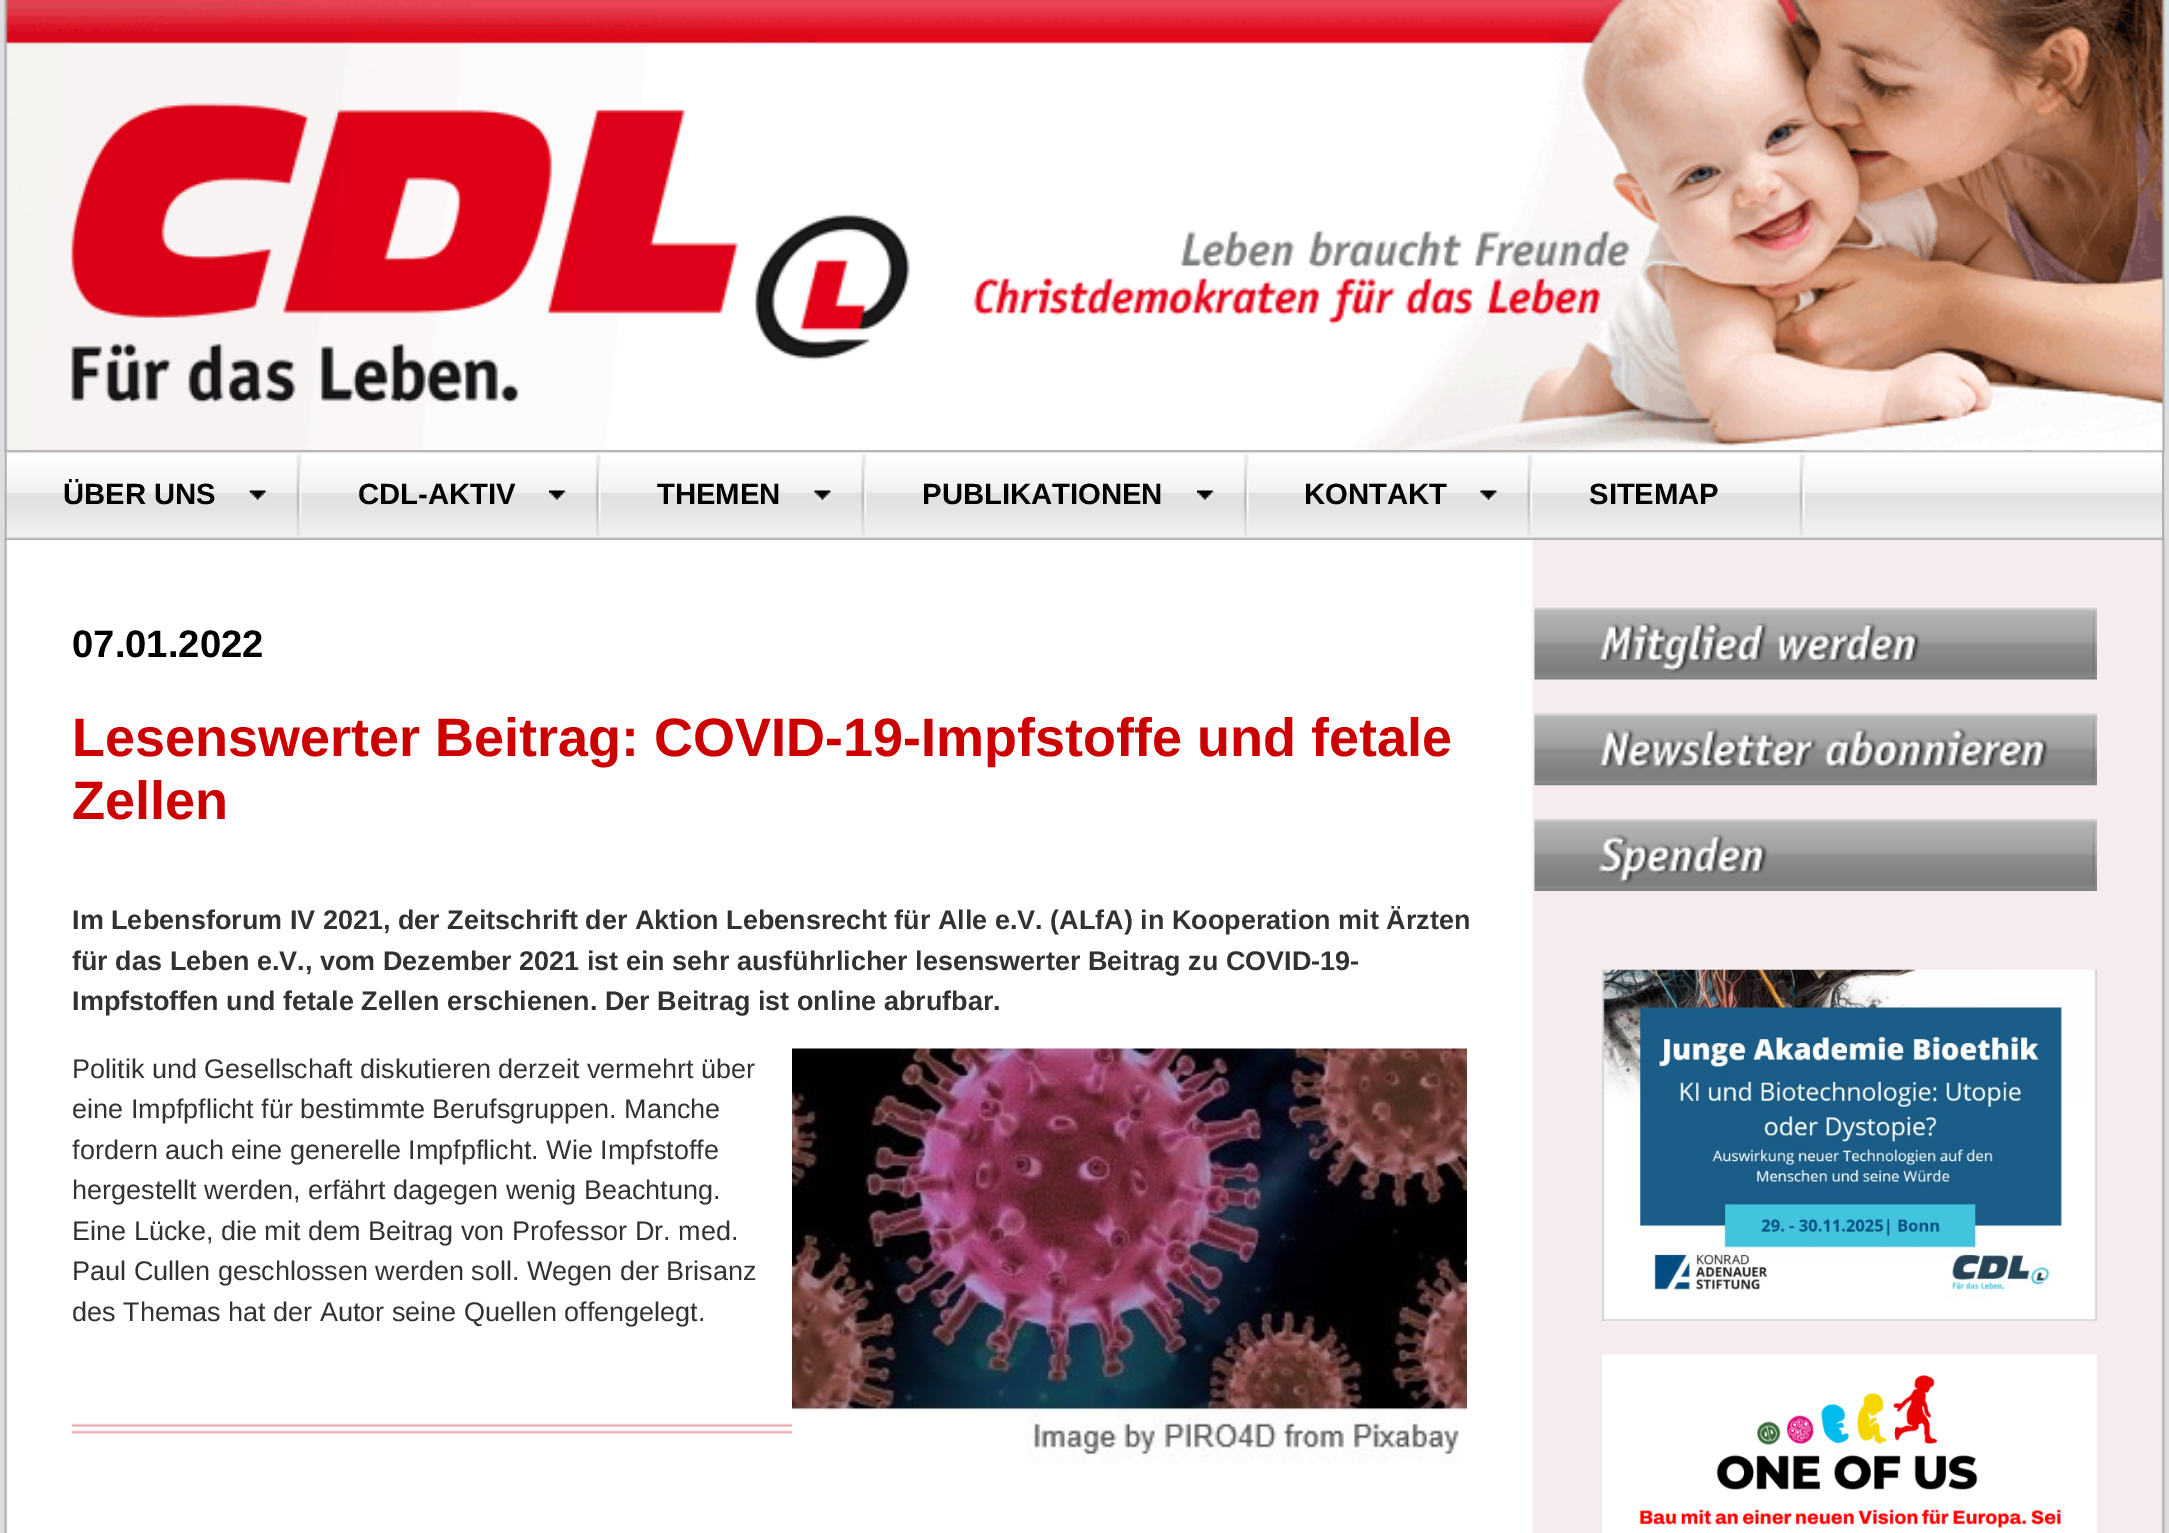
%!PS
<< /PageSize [2169 1533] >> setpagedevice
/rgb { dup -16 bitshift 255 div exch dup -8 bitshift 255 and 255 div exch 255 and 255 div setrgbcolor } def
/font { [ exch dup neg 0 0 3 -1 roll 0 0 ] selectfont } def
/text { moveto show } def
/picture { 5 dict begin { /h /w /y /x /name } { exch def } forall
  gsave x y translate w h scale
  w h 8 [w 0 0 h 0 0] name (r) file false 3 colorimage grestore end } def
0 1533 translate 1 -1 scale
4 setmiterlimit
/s1 { /LiberationSans-Bold 29.25 font 16#000000 rgb } def
/s2 { /LiberationSans-Bold 38.25 font 16#000000 rgb } def
/s3 { /LiberationSans-Bold 54 font 16#CC0000 rgb } def
/s4 { /LiberationSans-Bold 27 font 16#323232 rgb } def
/s5 { /LiberationSans-Regular 27 font 16#323232 rgb } def
16#DDDEDF rgb
0 0 2169 1533 rectfill
(pic1.raw) 4 0 2161 1533 picture
(pic2.raw) 4 0 2161 450 picture
16#CCCCCC rgb
2164 450 1 90 rectfill
(pic3.raw) 4 450 2161 90 picture
16#AFAFAF rgb
2162 450 2 90 rectfill
5 450 2 90 rectfill
(pic4.raw) 6 450 296 89 picture
s1
(ÜBER UNS) 63 504 text
(pic5.raw) 249 490 18 12 picture
(pic6.raw) 301 450 300 86 picture
(CDL-AKTIV) 358 504 text
(pic7.raw) 549 490 17 12 picture
(pic8.raw) 600 450 267 86 picture
(THEMEN) 657 504 text
(pic9.raw) 814 490 17 12 picture
(pic10.raw) 866 450 383 86 picture
(PUBLIKATIONEN) 922 504 text
(pic7.raw) 1197 490 17 12 picture
(pic13.raw) 1532 450 273 86 picture
(pic11.raw) 1248 450 285 86 picture
(KONTAKT) 1304 504 text
(pic12.raw) 1480 490 17 12 picture
(SITEMAP) 1589 504 text
s2
(07.01.2022) 72 657 text
s3
(Lesenswerter Beitrag: COVID-19-Impfstoffe und fetale) 72 756 text
(Zellen) 72 819 text
s4
(Im Lebensforum IV 2021, der Zeitschrift der Aktion Lebensrecht für Alle e.V. \(ALfA\) in Kooperation mit Ärzten) 72 929 text
(für das Leben e.V., vom Dezember 2021 ist ein sehr ausführlicher lesenswerter Beitrag zu COVID-19-) 72 970 text
(Impfstoffen und fetale Zellen erschienen. Der Beitrag ist online abrufbar.) 72 1010 text
s5
(Politik und Gesellschaft diskutieren derzeit vermehrt über) 72 1078 text
(pic14.raw) 792 1048 675 415 picture
(eine Impfpflicht für bestimmte Berufsgruppen. Manche) 72 1118 text
(fordern auch eine generelle Impfpflicht. Wie Impfstoffe) 72 1159 text
(hergestellt werden, erfährt dagegen wenig Beachtung.) 72 1199 text
(Eine Lücke, die mit dem Beitrag von Professor Dr. med.) 72 1240 text
(Paul Cullen geschlossen werden soll. Wegen der Brisanz) 72 1280 text
(des Themas hat der Autor seine Quellen offengelegt.) 72 1321 text
(pic15.raw) 72 1423 720 11 picture
(pic16.raw) 1534 607 563 73 picture
(pic17.raw) 1534 713 563 73 picture
(pic18.raw) 1534 819 563 72 picture
(pic19.raw) 1602 969 495 352 picture
(pic20.raw) 1602 1354 495 179 picture
showpage
